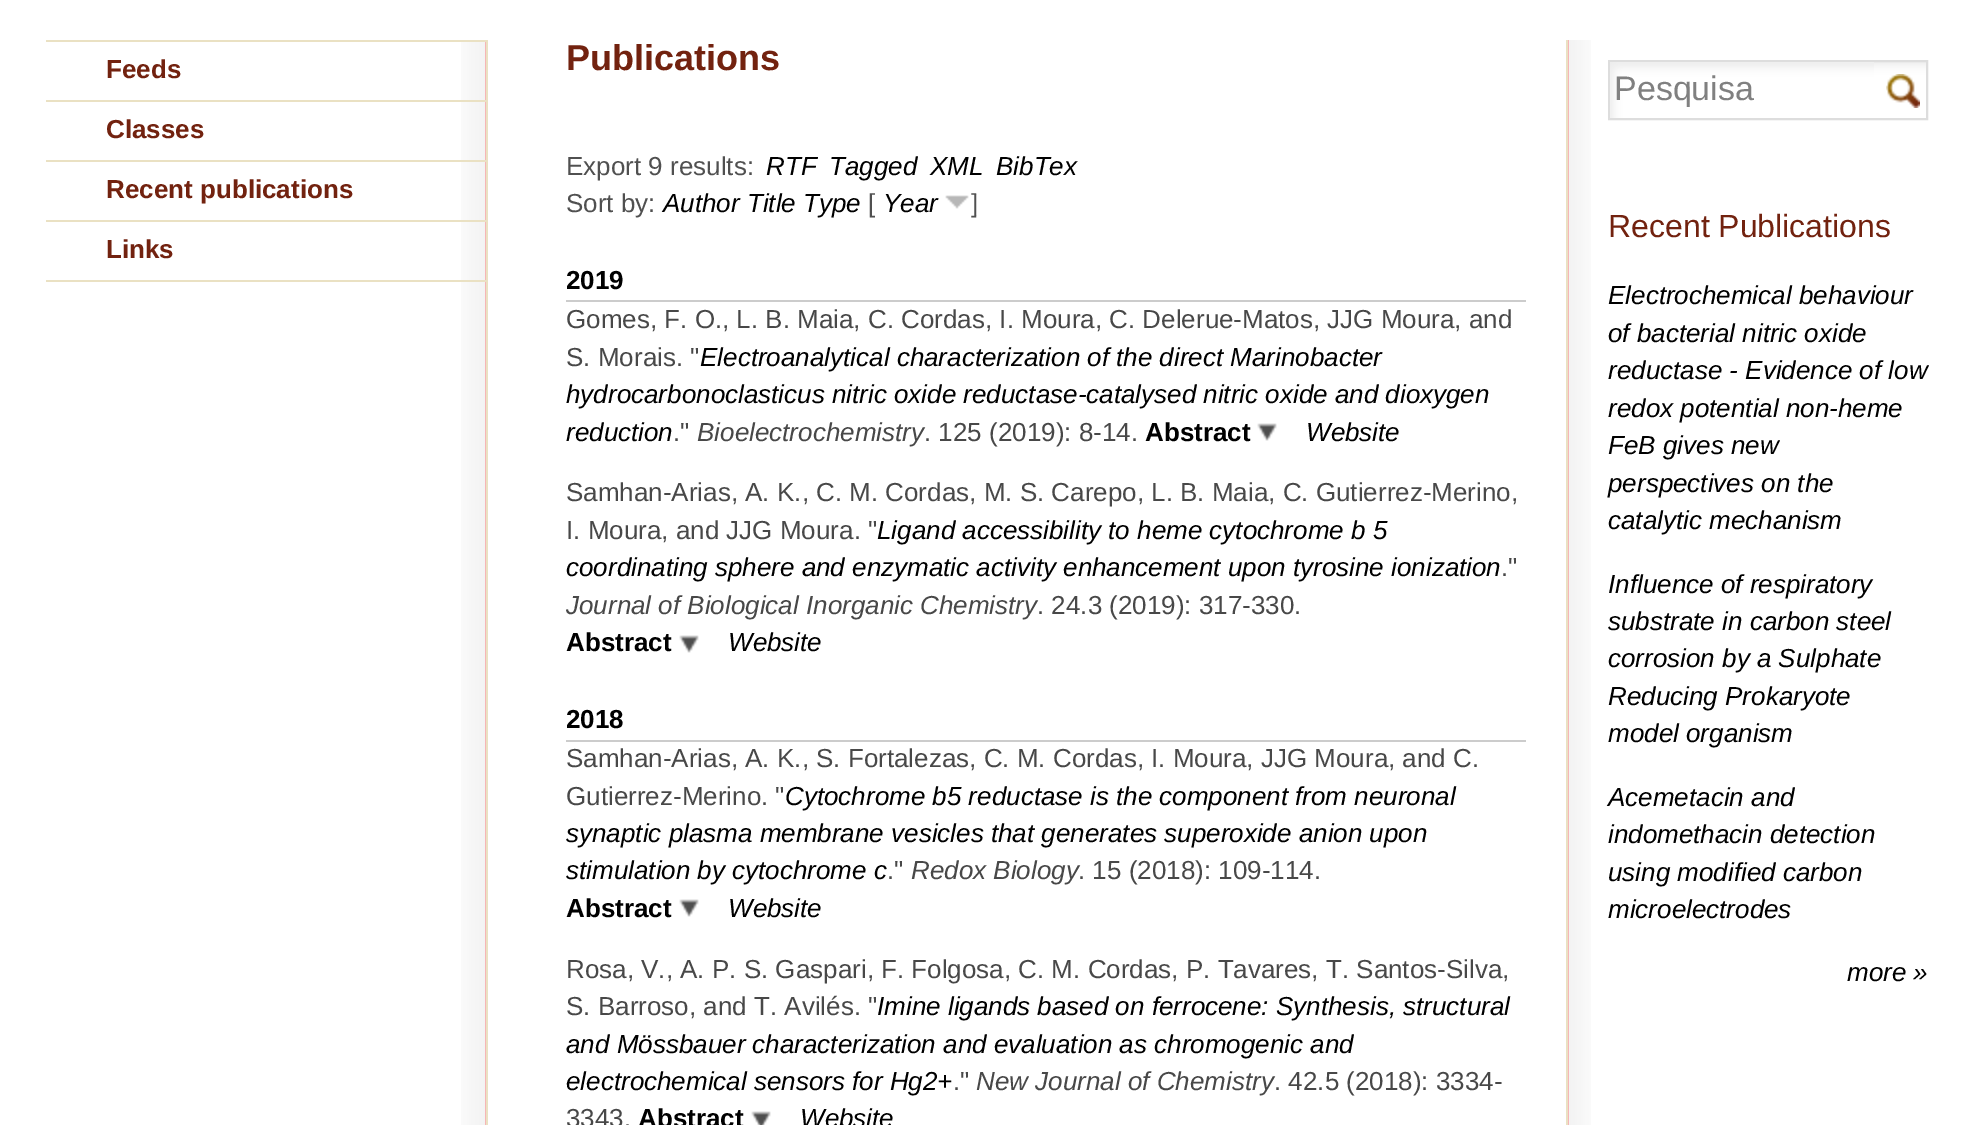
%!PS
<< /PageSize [1971 1125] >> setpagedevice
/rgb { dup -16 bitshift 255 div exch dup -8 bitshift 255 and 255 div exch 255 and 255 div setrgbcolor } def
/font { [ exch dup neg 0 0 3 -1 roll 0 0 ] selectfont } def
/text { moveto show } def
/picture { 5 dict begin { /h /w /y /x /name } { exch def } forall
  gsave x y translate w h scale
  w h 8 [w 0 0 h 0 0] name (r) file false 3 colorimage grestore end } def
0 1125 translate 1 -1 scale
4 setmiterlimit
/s1 { /LiberationSans-Bold 26 font 16#72220F rgb } def
/s2 { /LiberationSans-Bold 36 font 16#72220F rgb } def
/s3 { /LiberationSans-Regular 26 font 16#505050 rgb } def
/s4 { /LiberationSans-Italic 26 font 16#000000 rgb } def
/s5 { /LiberationSans-Bold 26 font 16#000000 rgb } def
/s6 { /LiberationSans-Regular 26 font 16#484848 rgb } def
/s7 { /LiberationSans-Italic 26 font 16#484848 rgb } def
/s8 { /LiberationSans-Regular 34 font 16#808080 rgb } def
/s9 { /LiberationSans-Regular 32 font 16#72220F rgb } def
16#FFFFFF rgb
0 0 1971 1125 rectfill
(pic1.raw) 461 42 25 1083 picture
16#EAE1C3 rgb
486 40 2 1085 rectfill
46 40 440 2 rectfill
46 100 440 2 rectfill
s1
(Feeds) 106 78 text
16#EAE1C3 rgb
46 160 440 2 rectfill
s1
(Classes) 106 138 text
16#EAE1C3 rgb
46 220 440 2 rectfill
s1
(Recent publications) 106 198 text
16#EAE1C3 rgb
46 280 440 2 rectfill
s1
(Links) 106 258 text
s2
(Publications) 566 70 text
s3
(Export 9 results:) 566 175 text
s4
(RTF) 766 175 text
(Tagged) 829 175 text
(XML) 930 175 text
(BibTex) 996 175 text
s3
(Sort by:) 566 212 text
s4
(Author Title Type) 663 212 text
s3
([) 868 212 text
s4
(Year) 883 212 text
(pic2.raw) 945 195 24 14 picture
s3
(]) 971 212 text
16#CCCCCC rgb
566 300 960 2 rectfill
s5
(2019) 566 289 text
s6
(Gomes, F. O., L. B. Maia, C. Cordas, I. Moura, C. Delerue-Matos, JJG Moura, and) 566 328 text
(S. Morais. ") 566 366 text
s4
(Electroanalytical characterization of the direct Marinobacter) 700 366 text
(hydrocarbonoclasticus nitric oxide reductase-catalysed nitric oxide and dioxygen) 566 403 text
(reduction) 566 441 text
s6
(.") 673 441 text
s7
(Bioelectrochemistry) 697 441 text
s6
(. 125 \(2019\): 8-14.) 924 441 text
s5
(Abstract) 1145 441 text
(pic3.raw) 1257 423 20 18 picture
s4
(Website) 1306 441 text
s6
(Samhan-Arias, A. K., C. M. Cordas, M. S. Carepo, L. B. Maia, C. Gutierrez-Merino,) 566 501 text
(I. Moura, and JJG Moura. ") 566 539 text
s4
(Ligand accessibility to heme cytochrome b 5) 877 539 text
(coordinating sphere and enzymatic activity enhancement upon tyrosine ionization) 566 576 text
s6
(.") 1501 576 text
s7
(Journal of Biological Inorganic Chemistry) 566 614 text
s6
(. 24.3 \(2019\): 317-330.) 1037 614 text
s5
(Abstract) 566 651 text
(pic3.raw) 679 635 20 18 picture
s4
(Website) 728 651 text
16#CCCCCC rgb
566 740 960 2 rectfill
s5
(2018) 566 728 text
s6
(Samhan-Arias, A. K., S. Fortalezas, C. M. Cordas, I. Moura, JJG Moura, and C.) 566 767 text
(Gutierrez-Merino. ") 566 805 text
s4
(Cytochrome b5 reductase is the component from neuronal) 785 805 text
(synaptic plasma membrane vesicles that generates superoxide anion upon) 566 842 text
(stimulation by cytochrome c) 566 879 text
s6
(.") 887 879 text
s7
(Redox Biology) 911 879 text
s6
(. 15 \(2018\): 109-114.) 1078 879 text
s5
(Abstract) 566 917 text
(pic3.raw) 679 899 20 18 picture
s4
(Website) 728 917 text
s6
(Rosa, V., A. P. S. Gaspari, F. Folgosa, C. M. Cordas, P. Tavares, T. Santos-Silva,) 566 978 text
(S. Barroso, and T. Avilés. ") 566 1015 text
s4
(Imine ligands based on ferrocene: Synthesis, structural) 877 1015 text
(and Mössbauer characterization and evaluation as chromogenic and) 566 1053 text
(electrochemical sensors for Hg2+) 566 1090 text
s6
(.") 953 1090 text
s7
(New Journal of Chemistry) 976 1090 text
s6
(. 42.5 \(2018\): 3334-) 1274 1090 text
(3343.) 566 1127 text
s5
(Abstract) 638 1127 text
(pic4.raw) 751 1111 20 14 picture
s4
(Website) 800 1127 text
(pic5.raw) 1568 40 23 1085 picture
16#EAE1C3 rgb
1566 40 2 1085 rectfill
(pic6.raw) 1874 62 52 56 picture
16#DDDDDD rgb
2 setlinewidth
1609 61 318 58 rectstroke
(pic7.raw) 1610 62 264 56 picture
s8
(Pesquisa) 1614 100 text
(pic8.raw) 1886 74 34 34 picture
s9
(Recent Publications) 1608 237 text
s4
(Electrochemical behaviour) 1608 304 text
(of bacterial nitric oxide) 1608 342 text
(reductase - Evidence of low) 1608 379 text
(redox potential non-heme) 1608 417 text
(FeB gives new) 1608 454 text
(perspectives on the) 1608 492 text
(catalytic mechanism) 1608 529 text
(Influence of respiratory) 1608 593 text
(substrate in carbon steel) 1608 630 text
(corrosion by a Sulphate) 1608 667 text
(Reducing Prokaryote) 1608 705 text
(model organism) 1608 742 text
(Acemetacin and) 1608 806 text
(indomethacin detection) 1608 843 text
(using modified carbon) 1608 881 text
(microelectrodes) 1608 918 text
(more ») 1847 981 text
showpage
